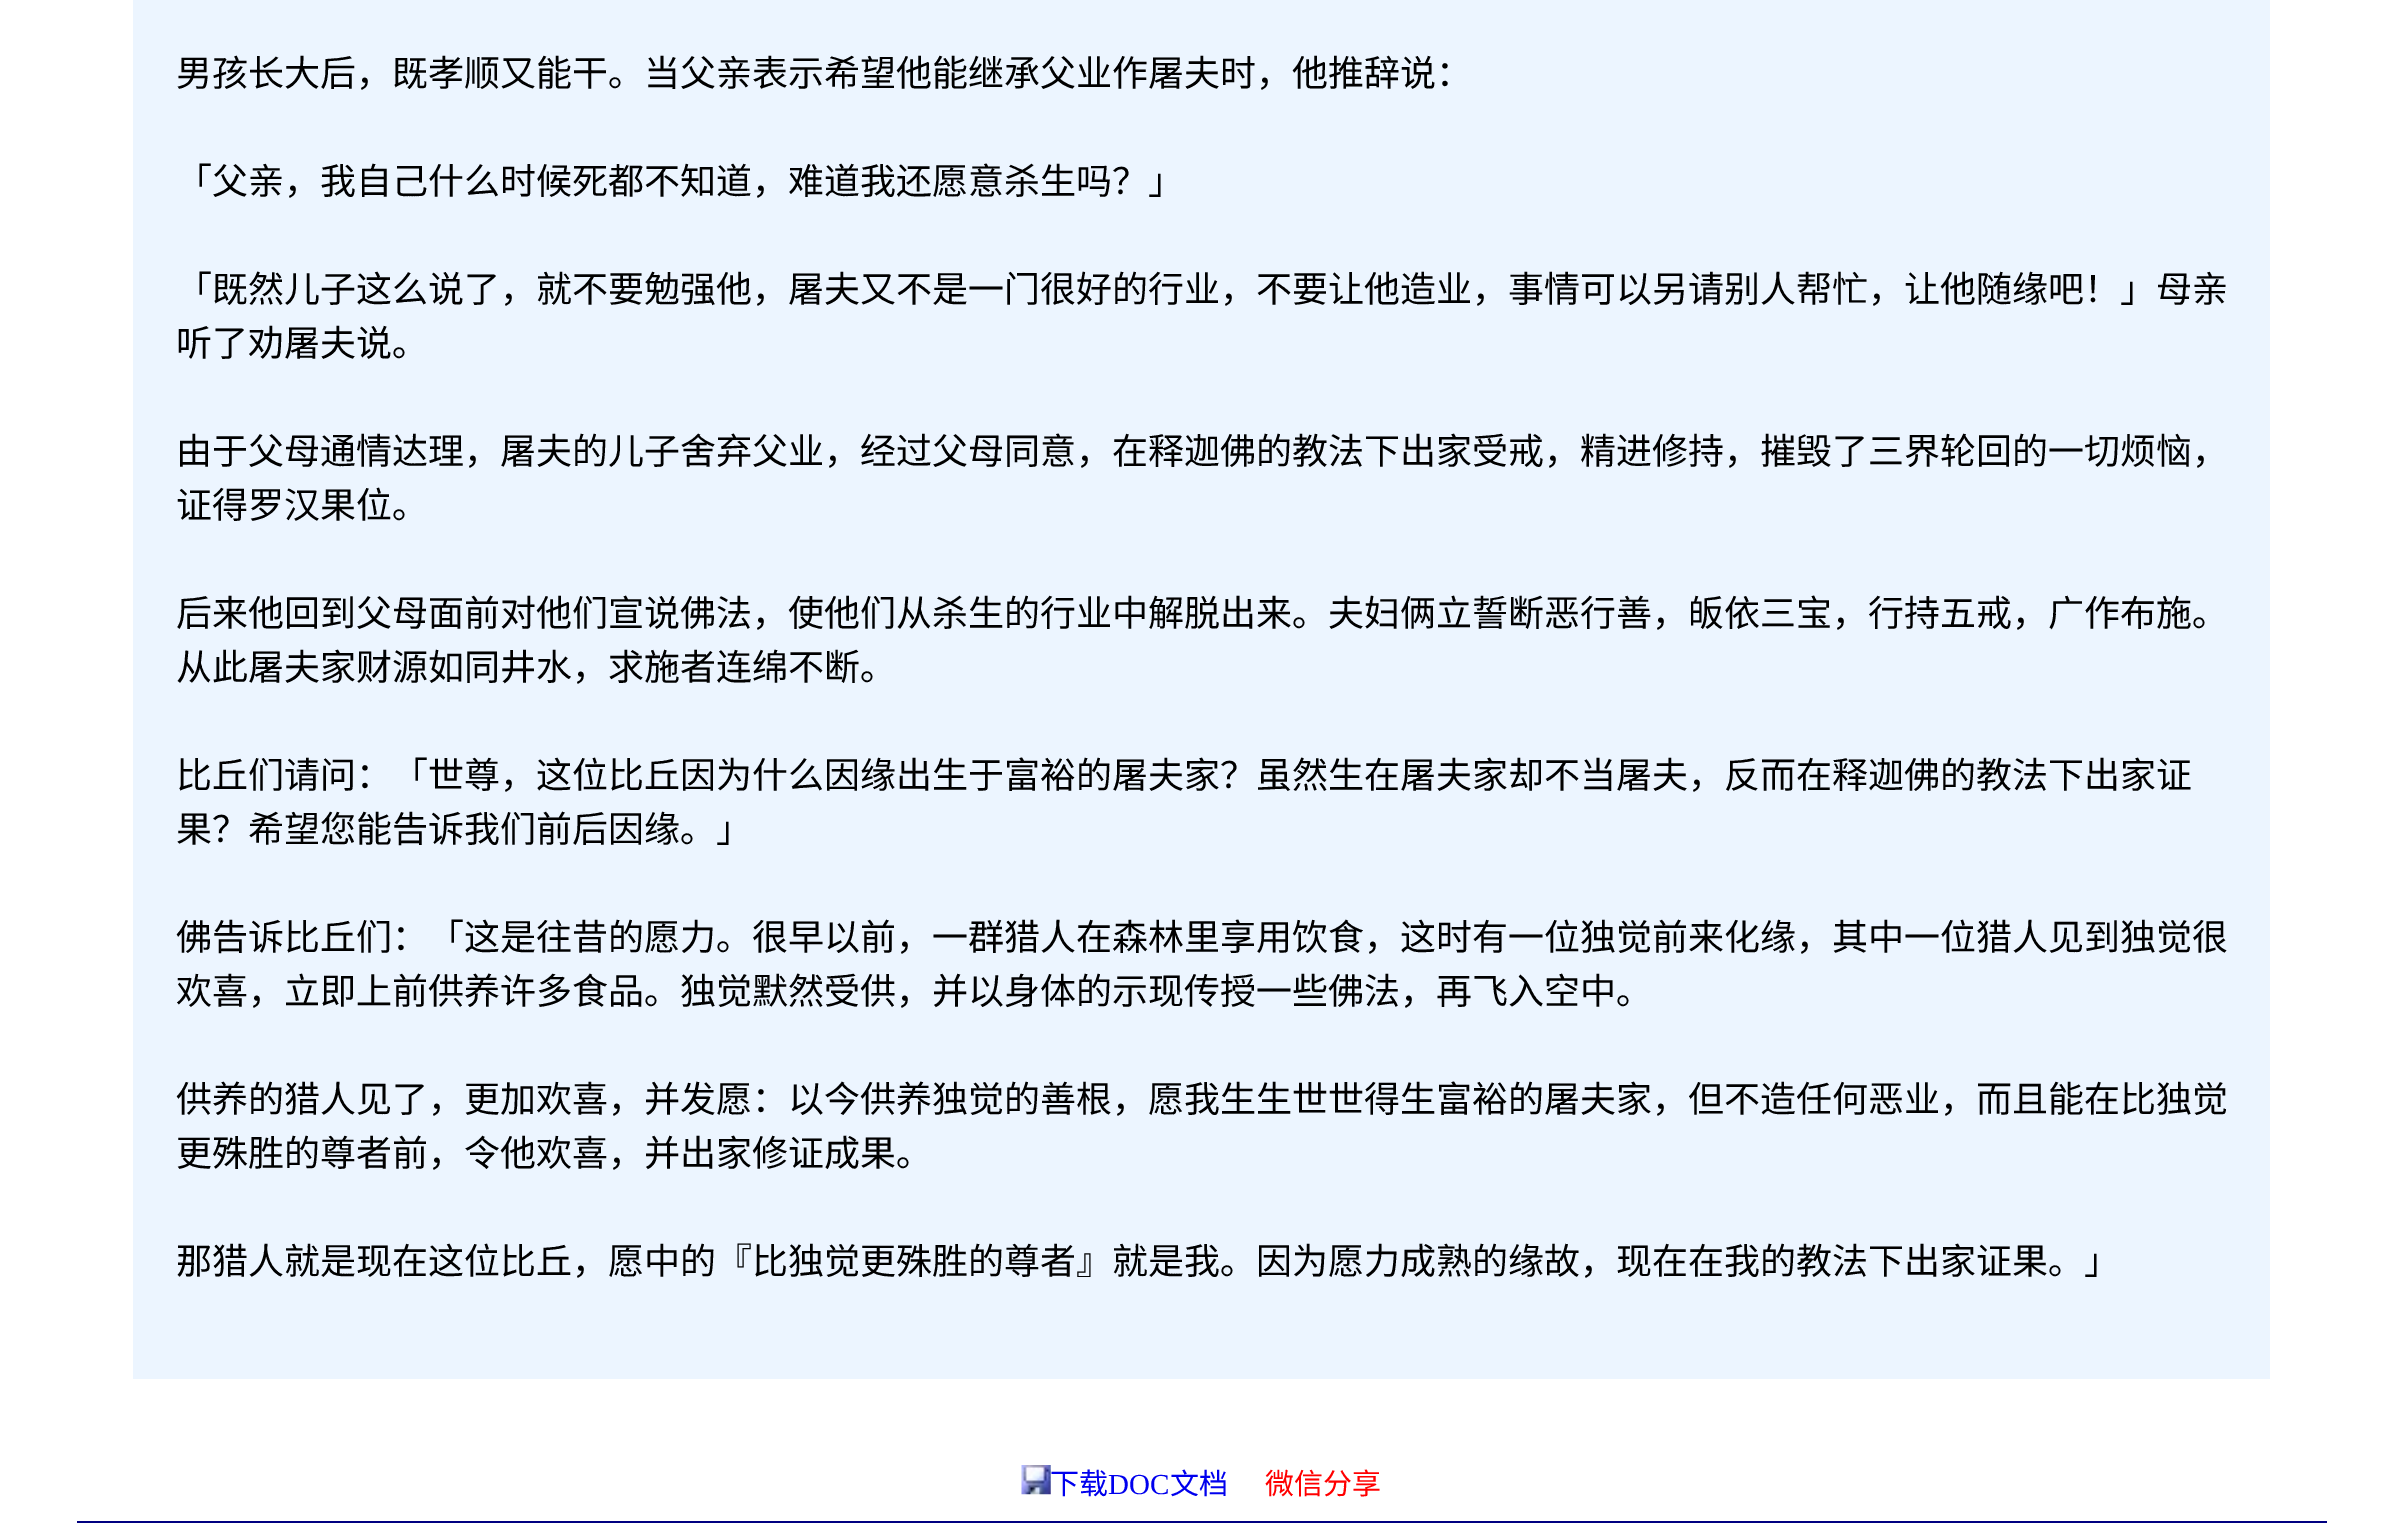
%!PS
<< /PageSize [2403 1523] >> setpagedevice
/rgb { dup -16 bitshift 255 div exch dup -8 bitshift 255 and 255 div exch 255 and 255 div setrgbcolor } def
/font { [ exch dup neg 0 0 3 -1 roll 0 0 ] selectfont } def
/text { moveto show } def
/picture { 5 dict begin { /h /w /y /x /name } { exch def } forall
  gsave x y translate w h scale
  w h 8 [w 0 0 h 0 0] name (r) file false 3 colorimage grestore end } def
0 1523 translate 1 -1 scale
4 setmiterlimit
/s1 { /NotoSansCJKSC-Regular 36 font 16#000000 rgb } def
/s2 { /NotoSansCJKSC-Regular 29 font 16#0000EE rgb } def
/s3 { /LiberationSerif-Regular 29 font 16#0000EE rgb } def
/s4 { /NotoSansCJKSC-Regular 29 font 16#FF0000 rgb } def
16#FFFFFF rgb
0 0 2403 1523 rectfill
16#ECF5FF rgb
133 0 2137 1379 rectfill
s1
(男孩长大后，既孝顺又能干。当父亲表示希望他能继承父业作屠夫时，他推辞说：) 176 86 text
(「父亲，我自己什么时候死都不知道，难道我还愿意杀生吗？」) 176 194 text
(「既然儿子这么说了，就不要勉强他，屠夫又不是一门很好的行业，不要让他造业，事情可以另请别人帮忙，让他随缘吧！」母亲) 176 302 text
(听了劝屠夫说。) 176 356 text
(由于父母通情达理，屠夫的儿子舍弃父业，经过父母同意，在释迦佛的教法下出家受戒，精进修持，摧毁了三界轮回的一切烦恼，) 176 464 text
(证得罗汉果位。) 176 518 text
(后来他回到父母面前对他们宣说佛法，使他们从杀生的行业中解脱出来。夫妇俩立誓断恶行善，皈依三宝，行持五戒，广作布施。) 176 626 text
(从此屠夫家财源如同井水，求施者连绵不断。) 176 680 text
(比丘们请问：「世尊，这位比丘因为什么因缘出生于富裕的屠夫家？虽然生在屠夫家却不当屠夫，反而在释迦佛的教法下出家证) 176 788 text
(果？希望您能告诉我们前后因缘。」) 176 842 text
(佛告诉比丘们：「这是往昔的愿力。很早以前，一群猎人在森林里享用饮食，这时有一位独觉前来化缘，其中一位猎人见到独觉很) 176 950 text
(欢喜，立即上前供养许多食品。独觉默然受供，并以身体的示现传授一些佛法，再飞入空中。) 176 1004 text
(供养的猎人见了，更加欢喜，并发愿：以今供养独觉的善根，愿我生生世世得生富裕的屠夫家，但不造任何恶业，而且能在比独觉) 176 1112 text
(更殊胜的尊者前，令他欢喜，并出家修证成果。) 176 1166 text
(那猎人就是现在这位比丘，愿中的『比独觉更殊胜的尊者』就是我。因为愿力成熟的缘故，现在在我的教法下出家证果。」) 176 1274 text
(pic1.raw) 1021 1465 30 30 picture
s2
(下载) 1050 1494 text
s3
(DOC) 1108 1494 text
s2
(文档) 1170 1494 text
s4
(微信分享) 1265 1494 text
16#000080 rgb
77 1521 2250 2 rectfill
showpage
